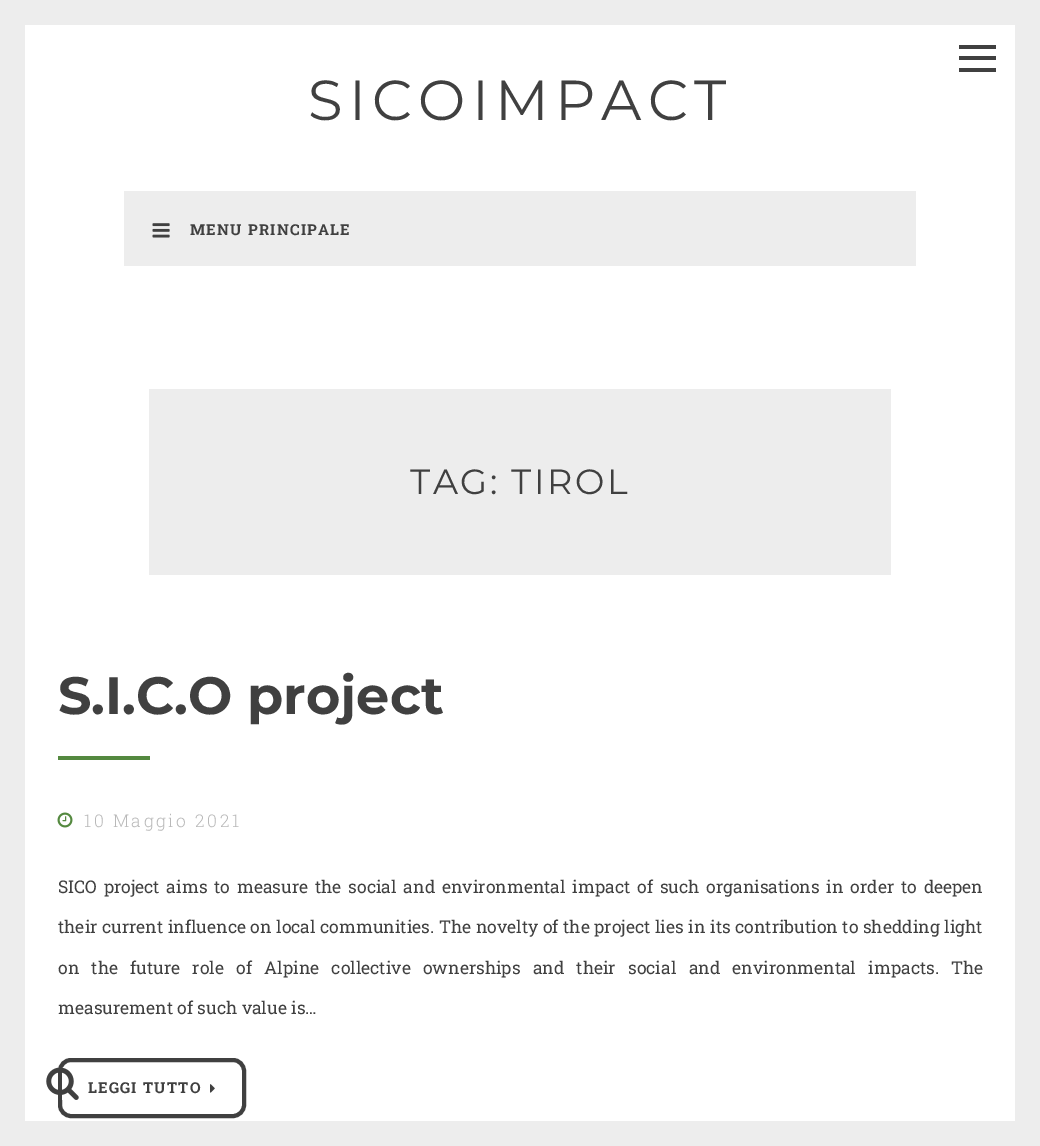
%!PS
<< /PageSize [1040 1146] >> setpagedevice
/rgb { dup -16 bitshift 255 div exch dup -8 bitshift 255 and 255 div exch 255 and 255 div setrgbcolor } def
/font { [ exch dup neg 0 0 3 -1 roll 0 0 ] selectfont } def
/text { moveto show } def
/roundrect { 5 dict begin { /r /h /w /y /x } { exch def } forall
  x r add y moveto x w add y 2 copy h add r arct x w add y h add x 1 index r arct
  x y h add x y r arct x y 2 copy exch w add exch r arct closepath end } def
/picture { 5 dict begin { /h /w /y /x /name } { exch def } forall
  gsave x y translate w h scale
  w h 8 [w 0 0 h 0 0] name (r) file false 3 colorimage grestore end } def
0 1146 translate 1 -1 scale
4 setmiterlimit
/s1 { /Montserrat-Bold 52.5 font 16#404040 rgb } def
/s2 { /RobotoSlab-Regular 17.5 font 16#404040 rgb } def
16#FFFFFF rgb
0 0 1040 1146 rectfill
16#EDEDED rgb
0 0 25 1146 rectfill
25 0 990 25 rectfill
1015 0 25 1146 rectfill
16#404040 rgb
959 56 37 4 rectfill
959 45 37 4 rectfill
959 68 37 4 rectfill
/Montserrat-Regular 56.25 font
308 120 moveto 6.25 0 (SICOIMPACT) ashow
16#EDEDED rgb
124 191 792 75 rectfill
(pic1.raw) 152 223 18 15 picture
/RobotoSlab-Bold 15 font
16#404040 rgb
190 235 moveto 1.25 0 (MENU PRINCIPALE) ashow
4 setlinewidth
60 1060 184 56 11 roundrect stroke
(pic2.raw) 46 1067 33 33 picture
16#EDEDED rgb
149 389 742 186 rectfill
/Montserrat-Regular 35 font
16#404040 rgb
410 494 moveto 2.5 0 (TAG: TIROL) ashow
s1
(S.I.C.O project) 58 714 text
16#54893F rgb
58 756 92 4 rectfill
(pic3.raw) 57 812 16 16 picture
/RobotoSlab-Light 17.5 font
16#B9B9B9 rgb
84 827 moveto 2.5 0 (10 Maggio 2021) ashow
/RobotoSlab-Regular 17.5 font
16#404040 rgb
58 893 moveto 2.5 0 32 (SICO project aims to measure the social and environmental impact of such organisations in order to deepen) widthshow
58 933 moveto 0.25 0 32 (their current influence on local communities. The novelty of the project lies in its contribution to shedding light) widthshow
58 974 moveto 7.9 0 32 (on the future role of Alpine collective ownerships and their social and environmental impacts. The) widthshow
(measurement of such value is…) 58 1014 text
/RobotoSlab-Bold 15 font
88 1093 moveto 1.25 0 (LEGGI TUTTO) ashow
(pic4.raw) 210 1084 5 9 picture
16#EDEDED rgb
25 1121 990 25 rectfill
showpage
